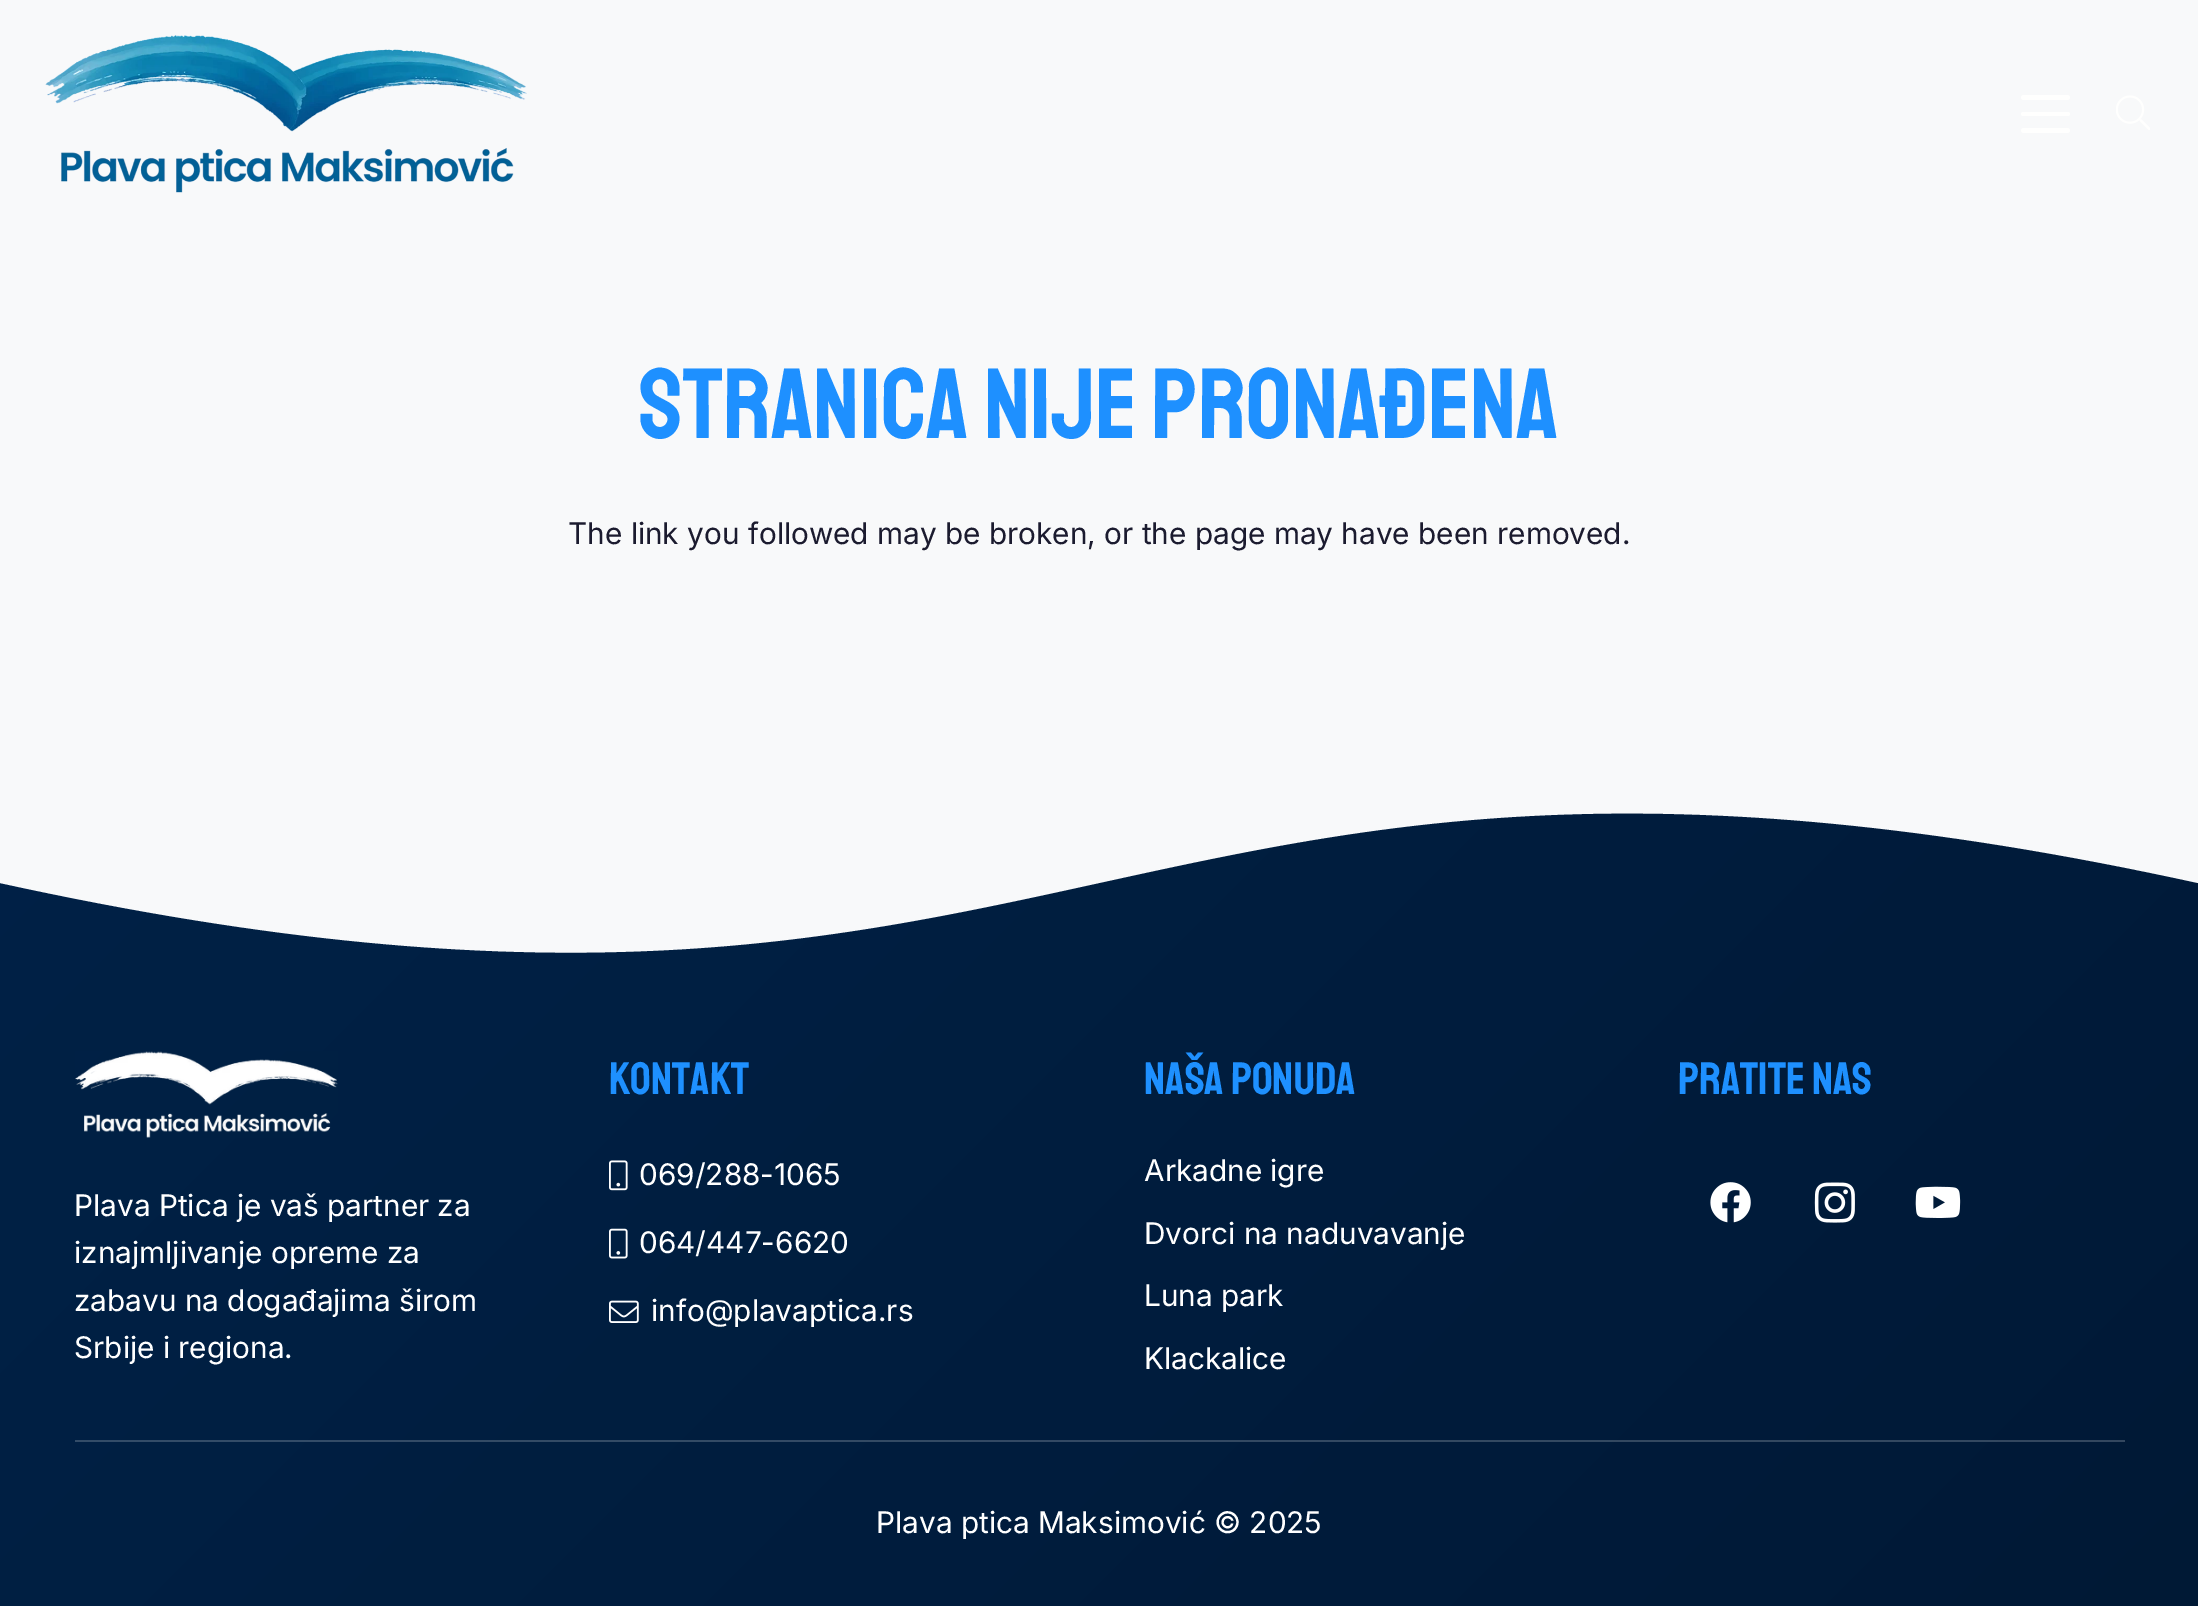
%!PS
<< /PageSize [2198 1606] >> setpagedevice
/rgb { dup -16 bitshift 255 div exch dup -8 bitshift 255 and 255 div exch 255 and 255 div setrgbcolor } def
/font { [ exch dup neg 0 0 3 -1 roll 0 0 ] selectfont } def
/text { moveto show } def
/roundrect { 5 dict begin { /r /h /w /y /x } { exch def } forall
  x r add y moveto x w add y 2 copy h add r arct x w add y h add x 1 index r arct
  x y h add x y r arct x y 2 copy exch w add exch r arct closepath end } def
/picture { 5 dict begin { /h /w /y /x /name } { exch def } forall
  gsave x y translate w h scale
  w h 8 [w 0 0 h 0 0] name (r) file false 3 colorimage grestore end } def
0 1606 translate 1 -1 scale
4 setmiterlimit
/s1 { /Staatliches-Regular 100 font 16#1E90FF rgb } def
/s2 { /Inter-Regular 29.75 font 16#1B1B2F rgb } def
/s3 { /Staatliches-Regular 45.5 font 16#1E90FF rgb } def
/s4 { /Inter-Regular 29.75 font 16#FFFFFF rgb } def
16#F8F9FA rgb
0 0 2198 1606 rectfill
(pic1.raw) 45 35 482 158 picture
16#FFFFFE rgb
2021 112 49 4 2 roundrect fill
2021 95 49 5 2.5 roundrect fill
2021 128 49 5 2.5 roundrect fill
(pic2.raw) 2116 95 34 35 picture
s1
(Stranica nije pronađena) 639 438 text
s2
(The link you followed may be broken, or the page may have been removed.) 568 544 text
gsave 0 813 moveto 2198 813 lineto 2198 1606 lineto 0 1606 lineto closepath clip newpath
<< /ShadingType 2 /ColorSpace /DeviceRGB /Coords [349 456 1849 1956] /Extend [true true] /Function << /FunctionType 3 /Domain [0 1] /Functions [<< /FunctionType 2 /Domain [0 1] /C0 [0 0.129 0.278] /C1 [0 0.125 0.267] /N 1 >> << /FunctionType 2 /Domain [0 1] /C0 [0 0.125 0.267] /C1 [0 0.122 0.259] /N 1 >> << /FunctionType 2 /Domain [0 1] /C0 [0 0.122 0.259] /C1 [0 0.118 0.247] /N 1 >> << /FunctionType 2 /Domain [0 1] /C0 [0 0.118 0.247] /C1 [0 0.11 0.239] /N 1 >> << /FunctionType 2 /Domain [0 1] /C0 [0 0.11 0.239] /C1 [0 0.106 0.227] /N 1 >> << /FunctionType 2 /Domain [0 1] /C0 [0 0.106 0.227] /C1 [0 0.102 0.22] /N 1 >> << /FunctionType 2 /Domain [0 1] /C0 [0 0.102 0.22] /C1 [0 0.098 0.208] /N 1 >>] /Bounds [0.14 0.29 0.43 0.57 0.71 0.86] /Encode [0 1 0 1 0 1 0 1 0 1 0 1 0 1] >> >> shfill grestore
gsave 75 1440 moveto 2125 1440 lineto 2125 1442 lineto 75 1442 lineto closepath clip newpath
<< /ShadingType 2 /ColorSpace /DeviceRGB /Coords [349 456 1849 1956] /Extend [true true] /Function << /FunctionType 3 /Domain [0 1] /Functions [<< /FunctionType 2 /Domain [0 1] /C0 [0.2 0.302 0.424] /C1 [0.2 0.302 0.412] /N 1 >> << /FunctionType 2 /Domain [0 1] /C0 [0.2 0.302 0.412] /C1 [0.2 0.298 0.408] /N 1 >> << /FunctionType 2 /Domain [0 1] /C0 [0.2 0.298 0.408] /C1 [0.2 0.294 0.396] /N 1 >> << /FunctionType 2 /Domain [0 1] /C0 [0.2 0.294 0.396] /C1 [0.2 0.286 0.392] /N 1 >> << /FunctionType 2 /Domain [0 1] /C0 [0.2 0.286 0.392] /C1 [0.2 0.286 0.38] /N 1 >> << /FunctionType 2 /Domain [0 1] /C0 [0.2 0.286 0.38] /C1 [0.2 0.282 0.376] /N 1 >> << /FunctionType 2 /Domain [0 1] /C0 [0.2 0.282 0.376] /C1 [0.2 0.278 0.365] /N 1 >>] /Bounds [0.14 0.29 0.43 0.57 0.71 0.86] /Encode [0 1 0 1 0 1 0 1 0 1 0 1 0 1] >> >> shfill grestore
16#F8F9FA rgb
0 883 moveto 1099 1124 1099 642 2198 883 curveto 2198 803 lineto 0 803 lineto closepath fill
s3
(Kontakt) 609 1094 text
(pic3.raw) 609 1160 19 31 picture
s4
(069/288-1065) 639 1185 text
(pic4.raw) 609 1228 19 31 picture
(064/447-6620) 639 1253 text
(pic5.raw) 609 1300 30 23 picture
(info@plavaptica.rs) 651 1321 text
s3
(Naša ponuda) 1144 1094 text
s4
(Arkadne igre) 1144 1181 text
(Dvorci na naduvavanje) 1144 1244 text
(Luna park) 1144 1306 text
(Klackalice) 1144 1369 text
s3
(Pratite nas) 1678 1094 text
(pic6.raw) 1710 1182 41 41 picture
(pic7.raw) 1814 1182 41 41 picture
(pic8.raw) 1915 1186 46 32 picture
(pic9.raw) 75 1051 263 87 picture
s4
(Plava Ptica je vaš partner za) 74 1216 text
(iznajmljivanje opreme za) 74 1263 text
(zabavu na događajima širom) 74 1311 text
(Srbije i regiona.) 74 1358 text
(Plava ptica Maksimović © 2025) 876 1533 text
showpage
